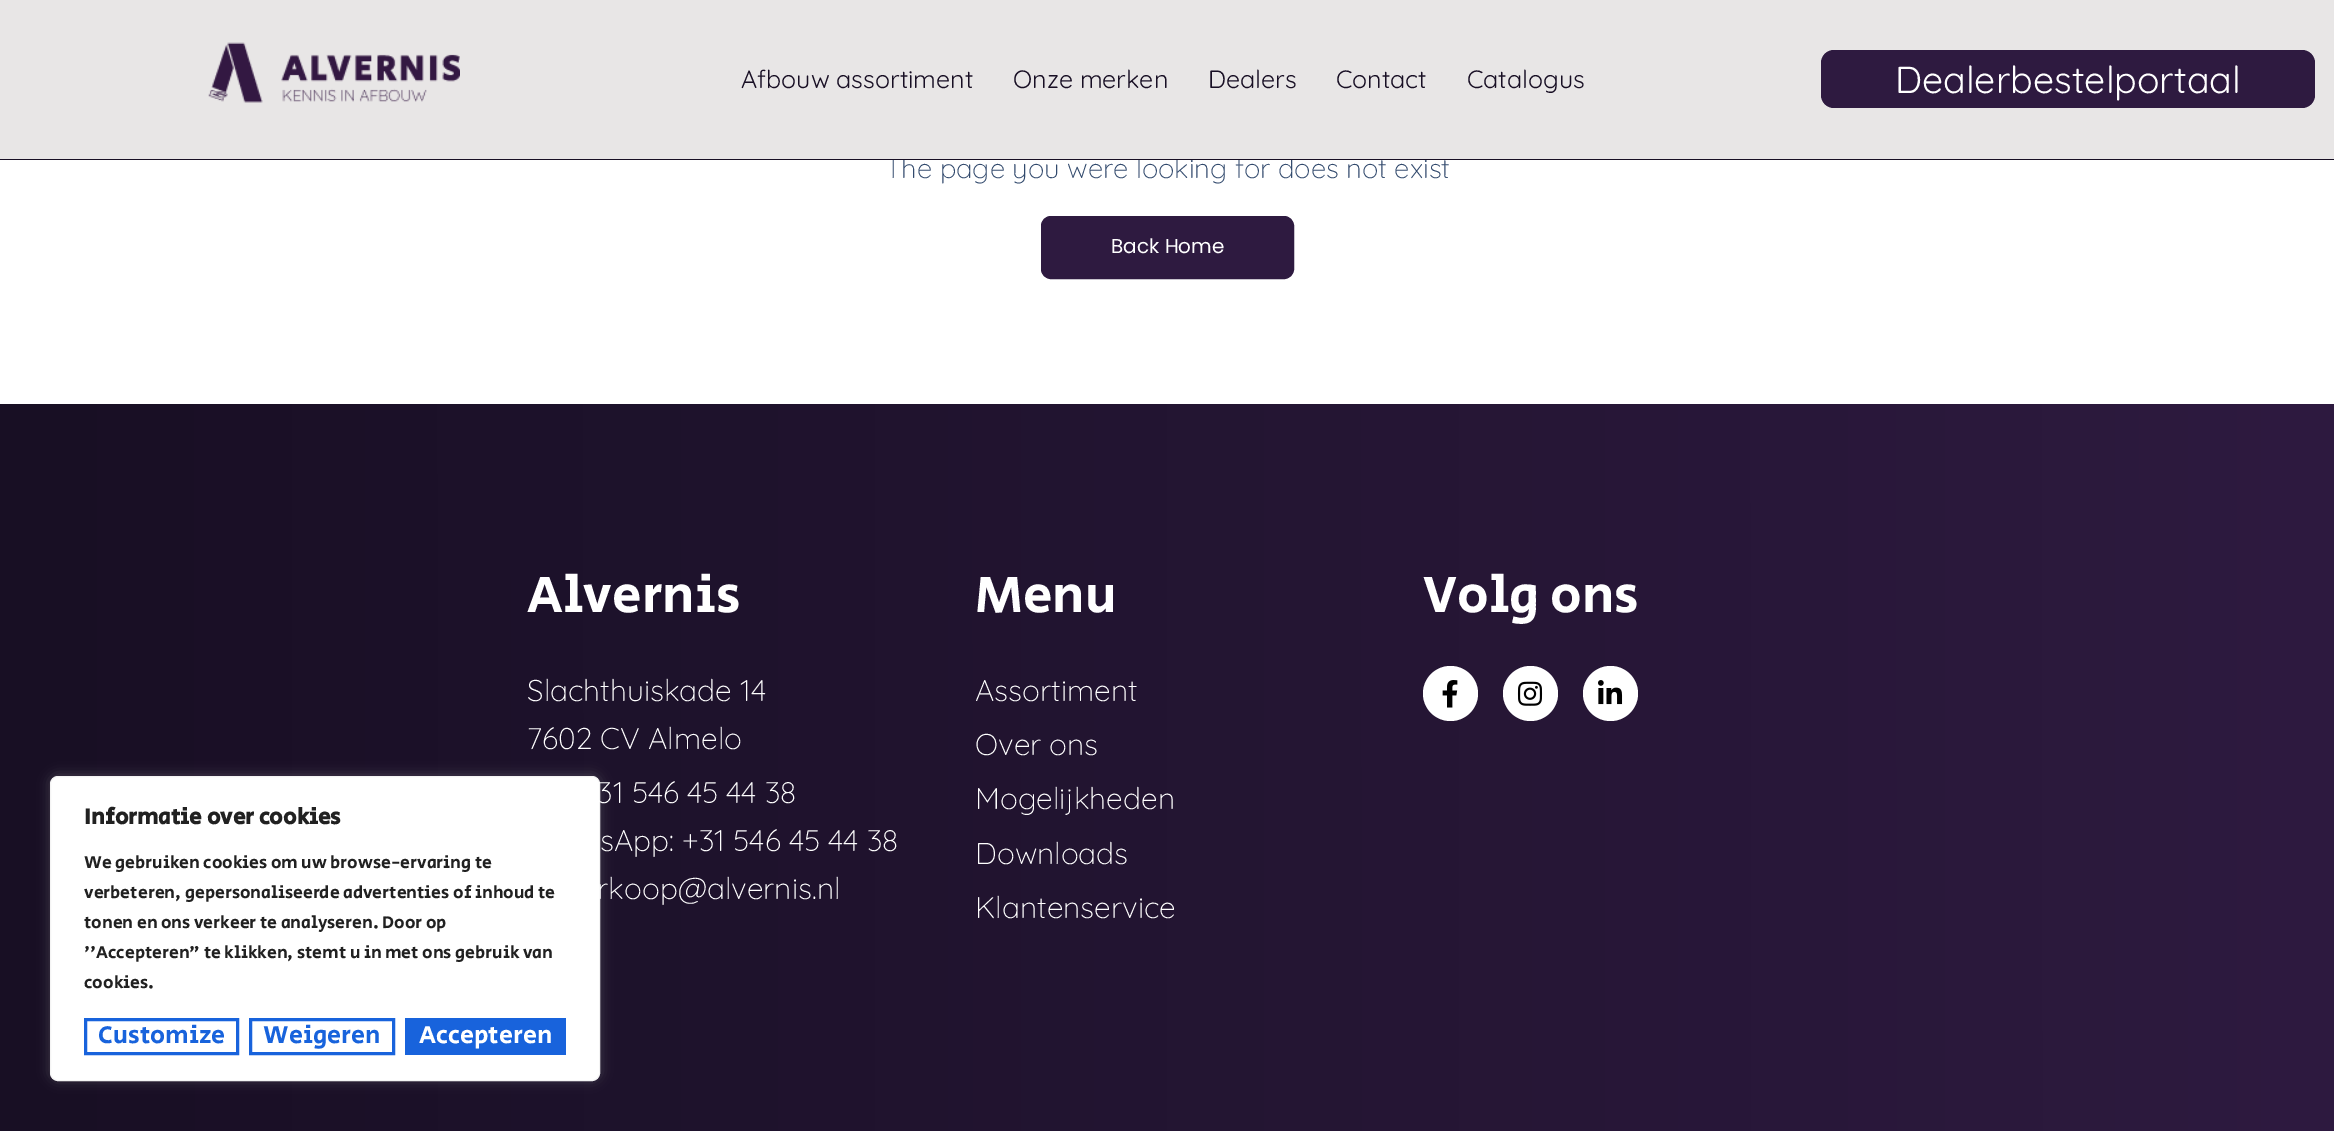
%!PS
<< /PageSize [2334 1131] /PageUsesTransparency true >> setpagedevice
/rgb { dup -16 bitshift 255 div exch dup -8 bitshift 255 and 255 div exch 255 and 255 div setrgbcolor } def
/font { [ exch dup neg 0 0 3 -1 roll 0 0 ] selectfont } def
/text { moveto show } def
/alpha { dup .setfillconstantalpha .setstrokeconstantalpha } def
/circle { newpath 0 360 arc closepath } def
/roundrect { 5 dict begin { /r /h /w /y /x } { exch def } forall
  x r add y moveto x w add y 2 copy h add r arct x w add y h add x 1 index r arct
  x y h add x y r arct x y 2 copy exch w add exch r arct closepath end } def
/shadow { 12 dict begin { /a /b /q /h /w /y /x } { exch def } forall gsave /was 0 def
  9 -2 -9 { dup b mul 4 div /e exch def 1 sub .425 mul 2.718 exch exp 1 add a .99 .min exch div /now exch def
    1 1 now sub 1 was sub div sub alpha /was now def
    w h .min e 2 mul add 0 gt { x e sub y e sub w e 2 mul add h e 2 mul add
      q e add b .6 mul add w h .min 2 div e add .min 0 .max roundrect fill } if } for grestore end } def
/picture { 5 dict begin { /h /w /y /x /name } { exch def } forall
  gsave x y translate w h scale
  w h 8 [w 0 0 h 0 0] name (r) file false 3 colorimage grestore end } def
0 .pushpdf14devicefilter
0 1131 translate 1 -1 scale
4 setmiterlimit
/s1 { /SecularOne-Bold 22.5 font 16#212121 rgb } def
/s2 { /SecularOne-Regular 17.5 font 16#212121 rgb } def
/s3 { /SecularOne-Regular 25 font 16#1863DC rgb } def
/s4 { /SecularOne-Regular 25 font 16#FFFFFF rgb } def
/s5 { /Quicksand-Light 27.5 font 16#324A6D rgb } def
/s6 { /Quicksand-Regular 25 font 16#180F24 rgb } def
/s7 { /Quicksand-Regular 37.5 font 16#FFFFFF rgb } def
/s8 { /Poppins-Regular 20 font 16#FFFFFF rgb } def
/s9 { /SecularOne-Regular 52.5 font 16#FFFFFF rgb } def
/s10 { /Quicksand-Light 30 font 16#FFFFFF rgb } def
16#FFFFFF rgb
0 0 2334 1131 rectfill
gsave 0 404 moveto 2334 404 lineto 2334 1131 lineto 0 1131 lineto closepath clip newpath
<< /ShadingType 2 /ColorSpace /DeviceRGB /Coords [0 818 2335 817] /Extend [true true] /Function << /FunctionType 2 /Domain [0 1] /C0 [0.094 0.059 0.141] /C1 [0.18 0.102 0.251] /N 1 >> >> shfill grestore
16#ACABAB rgb
50 775 550 305 8 6 0.3 shadow
16#FFFFFF rgb
50.5 776.5 549 304 7.5 roundrect gsave fill grestore
16#F4F4F4 rgb
stroke
s1
(Informatie over cookies) 84 824 text
s2
(We gebruiken cookies om uw browse-ervaring te) 84 868 text
(verbeteren, gepersonaliseerde advertenties of inhoud te) 84 898 text
(tonen en ons verkeer te analyseren. Door op) 84 928 text
(''Accepteren" te klikken, stemt u in met ons gebruik van) 84 958 text
(cookies.) 84 988 text
16#1863DC rgb
3 setlinewidth
85.5 1019.5 152 34 rectstroke
s3
(Customize) 98 1043 text
250.5 1019.5 143 34 rectstroke
(Weigeren) 263 1043 text
405 1018 161 37 rectfill
s4
(Accepteren) 419 1043 text
s5
(The page you were looking for does not exist) 885 178 text
16#E8E6E6 rgb
0 0 2334 159 rectfill
16#180F24 rgb
0 159 2334 1 rectfill
(pic1.raw) 208 42 252 61 picture
s6
(Afbouw assortiment) 741 88 text
(Onze merken) 1013 88 text
(Dealers) 1208 88 text
(Contact) 1336 88 text
(Catalogus) 1467 88 text
16#2E1A40 rgb
1821 50 494 58 13 roundrect fill
s7
(Dealerbestelportaal) 1895 93 text
16#2E1A40 rgb
1041.5 216.5 252 62 9.5 roundrect gsave fill grestore
1 setlinewidth
stroke
s8
(Back Home) 1111 253 text
s9
(Alvernis) 527 612 text
s10
(Slachthuiskade 14) 527 701 text
(7602 CV Almelo) 527 749 text
(31 546 45 44 38) 597 803 text
(sApp: +31 546 45 44 38) 600 851 text
(rkoop@alvernis.nl) 597 899 text
s9
(Menu) 975 612 text
s10
(Assortiment) 975 701 text
(Over ons) 975 755 text
(Mogelijkheden) 975 809 text
(Downloads) 975 864 text
(Klantenservice) 975 918 text
s9
(Volg ons) 1423 612 text
1450.5 693.5 27.5 circle fill
(pic2.raw) 1442 680 16 28 picture
1530.5 693.5 27.5 circle fill
(pic3.raw) 1517 681 26 25 picture
1610.5 693.5 27.5 circle fill
(pic4.raw) 1598 680 25 25 picture
.poppdf14devicefilter showpage
